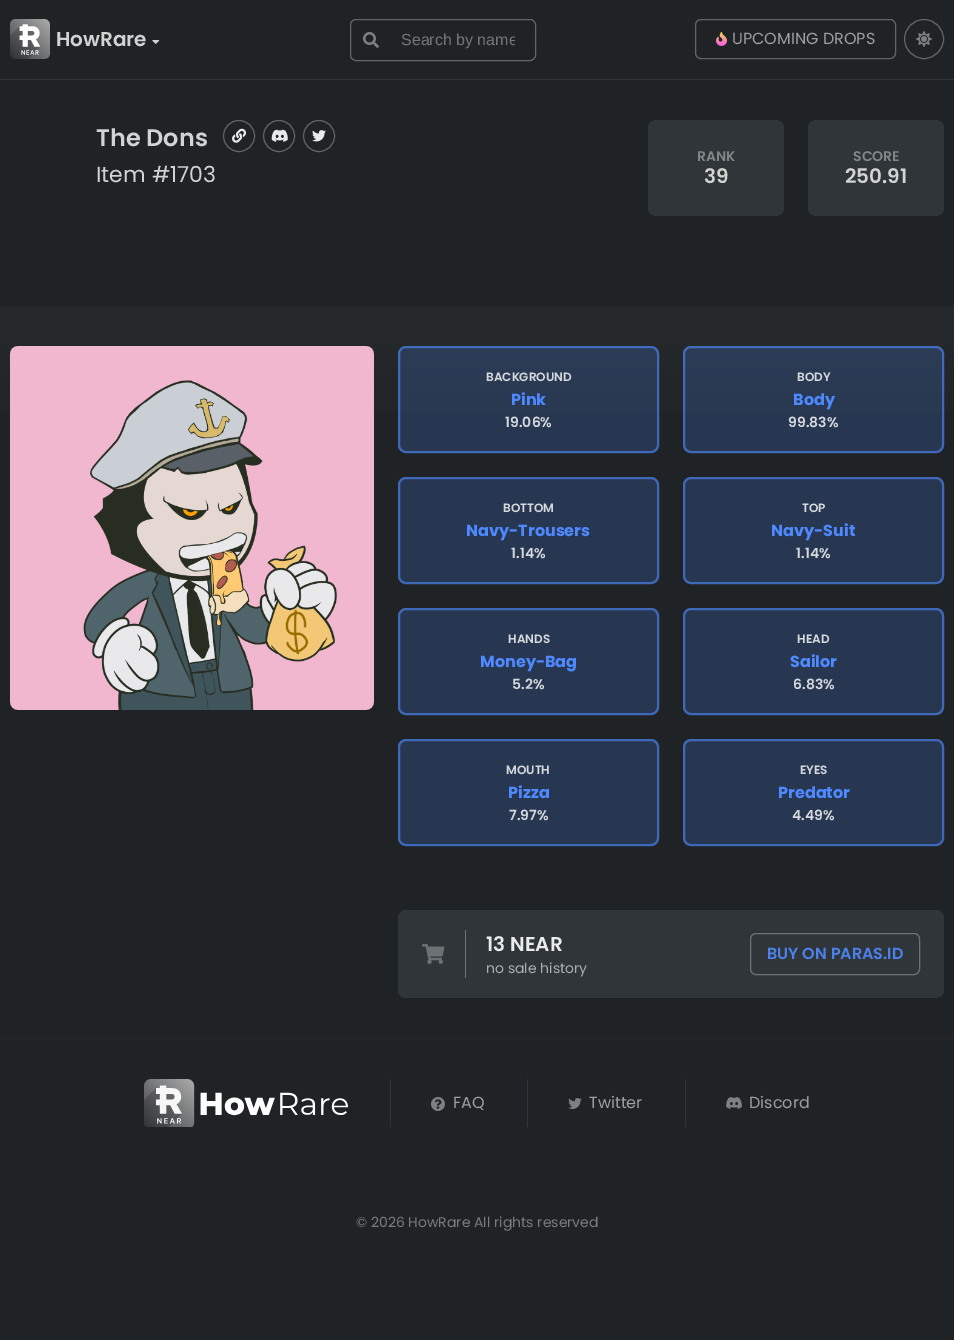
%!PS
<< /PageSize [954 1340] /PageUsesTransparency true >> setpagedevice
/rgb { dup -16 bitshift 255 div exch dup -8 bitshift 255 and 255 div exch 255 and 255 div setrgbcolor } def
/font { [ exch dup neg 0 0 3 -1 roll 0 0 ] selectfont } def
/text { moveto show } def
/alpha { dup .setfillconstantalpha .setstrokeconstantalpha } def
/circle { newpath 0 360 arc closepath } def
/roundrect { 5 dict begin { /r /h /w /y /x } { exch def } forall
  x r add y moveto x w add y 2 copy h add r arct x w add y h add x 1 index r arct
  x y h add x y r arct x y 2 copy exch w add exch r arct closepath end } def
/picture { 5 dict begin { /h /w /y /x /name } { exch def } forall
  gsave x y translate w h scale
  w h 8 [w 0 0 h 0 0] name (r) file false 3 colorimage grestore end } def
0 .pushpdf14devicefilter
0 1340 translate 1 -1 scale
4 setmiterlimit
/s1 { /Poppins-SemiBold 20 font 16#D2D3D3 rgb } def
/s2 { /LiberationSans-Regular 16 font 16#757575 rgb } def
/s3 { /Poppins-Regular 16 font 16#9C9E9F rgb } def
/s4 { /Poppins-SemiBold 24 font 16#D2D3D3 rgb } def
/s5 { /Poppins-Regular 22 font 16#D2D3D3 rgb } def
/s6 { /Poppins-SemiBold 14 font 16#828688 rgb } def
/s7 { /Poppins-SemiBold 12 font 16#D5D8DD rgb } def
/s8 { /Poppins-Bold 16 font 16#4E89FF rgb } def
/s9 { /Poppins-SemiBold 14 font 16#D5D8DD rgb } def
/s10 { /Poppins-SemiBold 20 font 16#EAEBEB rgb } def
/s11 { /Poppins-Regular 14 font 16#ACAEAF rgb } def
/s12 { /Poppins-SemiBold 16 font 16#4B81EB rgb } def
/s13 { /Poppins-Regular 14 font 16#797B7C rgb } def
16#1F2325 rgb
0 0 954 1340 rectfill
16#2F3538 rgb
0 79 954 1 rectfill
(pic1.raw) 10 19 40 40 picture
s1
(HowRare) 56 46 text
(pic2.raw) 152 40 8 4 picture
16#626566 rgb
350.5 19.5 185 41 5.5 roundrect stroke
(pic3.raw) 363 32 16 16 picture
gsave
401 31 114 18 rectclip
s2
(Search by name) 401 45 text
grestore
695.5 19.5 200 39 5.5 roundrect stroke
(pic4.raw) 716 32 11 14 picture
s3
(UPCOMING DROPS) 732 44 text
(pic5.raw) 916 31 16 16 picture
16#626566 rgb
924 39 19.5 circle stroke
s4
(The Dons) 96 146 text
16#626566 rgb
239 136 15.5 circle stroke
(pic6.raw) 232 128 14 15 picture
279 136 15.5 circle stroke
(pic7.raw) 271 129 17 13 picture
319 136 15.5 circle stroke
(pic8.raw) 312 130 14 12 picture
s5
(Item #1703) 96 182 text
16#2F3538 rgb
648 120 136 96 8 roundrect fill
s6
(RANK) 697 161 text
s1
(39) 704 183 text
16#2F3538 rgb
808 120 136 96 8 roundrect fill
s6
(SCORE) 853 161 text
s1
(250.91) 845 183 text
gsave 0 306 moveto 954 306 lineto 954 411 lineto 0 411 lineto closepath clip newpath
<< /ShadingType 2 /ColorSpace /DeviceRGB /Coords [477 306 477 998] /Extend [true true] /Function << /FunctionType 3 /Domain [0 1] /Functions [<< /FunctionType 2 /Domain [0 1] /C0 [0.149 0.165 0.176] /C1 [0.122 0.137 0.145] /N 1 >> << /FunctionType 2 /Domain [0 1] /C0 [0.122 0.137 0.145] /C1 [0.122 0.137 0.145] /N 1 >>] /Bounds [0.22] /Encode [0 1 0 1] >> >> shfill grestore
(pic9.raw) 10 346 364 364 picture
0.2 alpha
16#4E89FF rgb
398 346 261 107 8 roundrect fill
0.6 alpha
2 setlinewidth
399 347 259 105 7 roundrect stroke
1 alpha
s7
(BACKGROUND) 486 381 text
s8
(Pink) 511 405 text
s9
(19.06%) 505 427 text
0.2 alpha
16#4E89FF rgb
683 346 261 107 8 roundrect fill
0.6 alpha
684 347 259 105 7 roundrect stroke
1 alpha
s7
(BODY) 797 381 text
s8
(Body) 793 405 text
s9
(99.83%) 788 427 text
16#283751 rgb
398 477 261 107 8 roundrect fill
0.6 alpha
16#4E89FF rgb
399 478 259 105 7 roundrect stroke
1 alpha
s7
(BOTTOM) 503 512 text
s8
(Navy-Trousers) 466 536 text
s9
(1.14%) 511 558 text
16#283751 rgb
683 477 261 107 8 roundrect fill
0.6 alpha
16#4E89FF rgb
684 478 259 105 7 roundrect stroke
1 alpha
s7
(TOP) 802 512 text
s8
(Navy-Suit) 771 536 text
s9
(1.14%) 796 558 text
16#283751 rgb
398 608 261 107 8 roundrect fill
0.6 alpha
16#4E89FF rgb
399 609 259 105 7 roundrect stroke
1 alpha
s7
(HANDS) 508 643 text
s8
(Money-Bag) 480 667 text
s9
(5.2%) 512 689 text
16#283751 rgb
683 608 261 107 8 roundrect fill
0.6 alpha
16#4E89FF rgb
684 609 259 105 7 roundrect stroke
1 alpha
s7
(HEAD) 797 643 text
s8
(Sailor) 790 667 text
s9
(6.83%) 793 689 text
16#283751 rgb
398 739 261 107 8 roundrect fill
0.6 alpha
16#4E89FF rgb
399 740 259 105 7 roundrect stroke
1 alpha
s7
(MOUTH) 506 774 text
s8
(Pizza) 508 798 text
s9
(7.97%) 509 820 text
16#283751 rgb
683 739 261 107 8 roundrect fill
0.6 alpha
16#4E89FF rgb
684 740 259 105 7 roundrect stroke
1 alpha
s7
(EYES) 800 774 text
s8
(Predator) 778 798 text
s9
(4.49%) 792 820 text
16#2F3538 rgb
398 910 546 88 8 roundrect fill
(pic10.raw) 422 944 23 20 picture
16#6D7274 rgb
465 930 1 48 rectfill
s10
(13 NEAR) 486 951 text
s11
(no sale history) 486 973 text
16#6D7274 rgb
1 setlinewidth
750.5 933.5 169 41 5.5 roundrect stroke
s12
(BUY ON PARAS.ID) 767 959 text
16#292929 rgb
0 1038 954 1 rectfill
(pic11.raw) 144 1079 204 48 picture
16#2F3538 rgb
390 1079 1 48 rectfill
(pic12.raw) 431 1097 14 14 picture
s3
(FAQ) 453 1108 text
16#2F3538 rgb
527 1079 1 48 rectfill
(pic13.raw) 568 1098 14 11 picture
s3
(Twitter) 589 1108 text
16#2F3538 rgb
685 1079 1 48 rectfill
(pic14.raw) 726 1097 16 12 picture
s3
(Discord) 749 1108 text
s13
(© 2026 HowRare All rights reserved) 356 1227 text
.poppdf14devicefilter showpage
